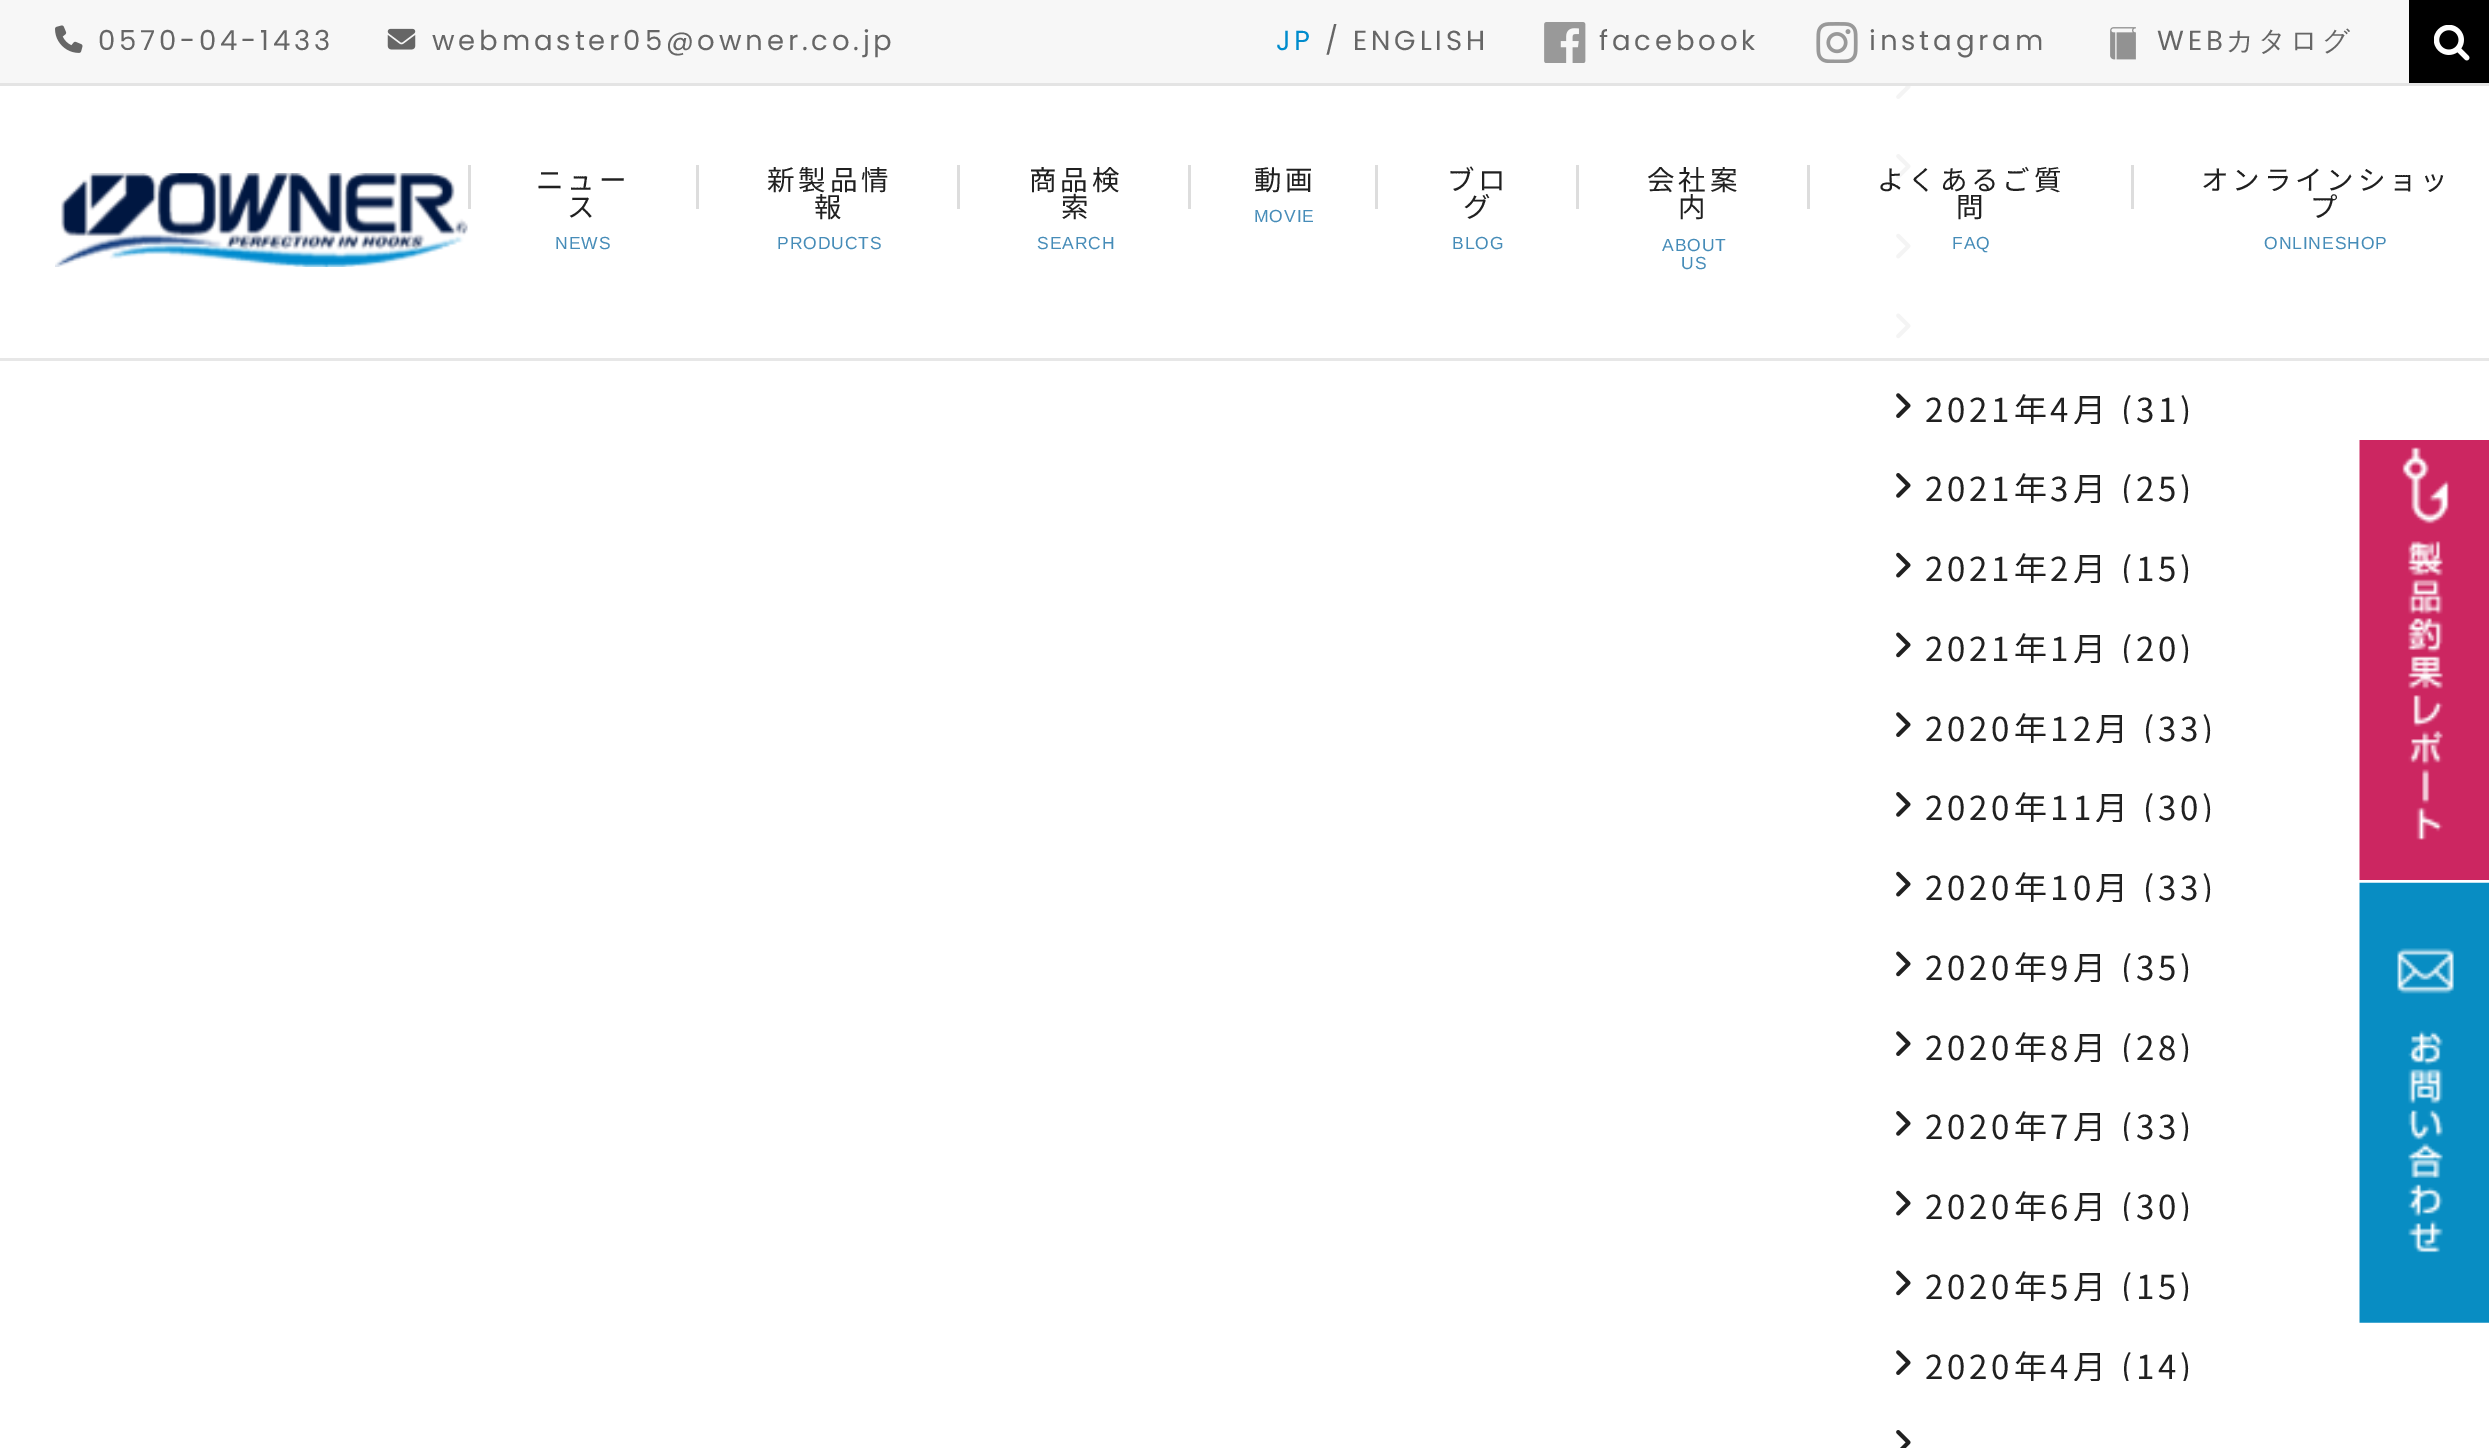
%!PS
<< /PageSize [2489 1448] >> setpagedevice
/rgb { dup -16 bitshift 255 div exch dup -8 bitshift 255 and 255 div exch 255 and 255 div setrgbcolor } def
/font { [ exch dup neg 0 0 3 -1 roll 0 0 ] selectfont } def
/picture { 5 dict begin { /h /w /y /x /name } { exch def } forall
  gsave x y translate w h scale
  w h 8 [w 0 0 h 0 0] name (r) file false 3 colorimage grestore end } def
0 1448 translate 1 -1 scale
4 setmiterlimit
16#FFFFFF rgb
0 0 2489 1448 rectfill
16#E7E7E7 rgb
0 358 2489 3 rectfill
16#F7F7F7 rgb
0 0 2409 83 rectfill
16#E4E4E4 rgb
0 83 2489 3 rectfill
(pic1.raw) 55 25 28 28 picture
/Poppins-Regular 27.5 font
16#666666 rgb
98 50 moveto 3.85 0 (0570-04-1433) ashow
(pic2.raw) 387 28 29 22 picture
432 50 moveto 3.85 0 (webmaster05@owner.co.jp) ashow
16#008CCD rgb
1276 50 moveto 3.85 0 (JP) ashow
16#666666 rgb
1325 50 moveto 3.85 0 (/ ENGLISH) ashow
(pic3.raw) 1544 22 42 41 picture
1599 50 moveto 3.85 0 (facebook) ashow
(pic4.raw) 1816 22 42 41 picture
1869 50 moveto 3.85 0 (instagram) ashow
(pic5.raw) 2110 27 26 33 picture
2157 50 moveto 3.85 0 (WEB) ashow
/WenQuanYiZenHei-Medium 27.5 font
2226 50 moveto 3.85 0 (カタログ) ashow
16#000000 rgb
2409 0 80 83 rectfill
(pic6.raw) 2434 25 36 36 picture
(pic7.raw) 55 173 413 94 picture
16#DDDDDD rgb
468 165 3 44 rectfill
/NotoSansJP-Regular 27.5 font
16#202020 rgb
536 190 moveto 3.85 0 (ニュー) ashow
567 217 moveto 3.85 0 (ス) ashow
16#DDDDDD rgb
696 165 3 44 rectfill
/LiberationSans-Regular 17.5 font
16#468CB8 rgb
555 249 moveto 0.9 0 (NEWS) ashow
/NotoSansJP-Regular 27.5 font
16#202020 rgb
767 190 moveto 3.85 0 (新製品情) ashow
814 217 moveto 3.85 0 (報) ashow
16#DDDDDD rgb
957 165 3 44 rectfill
/LiberationSans-Regular 17.5 font
16#468CB8 rgb
777 249 moveto 0.9 0 (PRODUCTS) ashow
/NotoSansJP-Regular 27.5 font
16#202020 rgb
1029 190 moveto 3.85 0 (商品検) ashow
1061 217 moveto 3.85 0 (索) ashow
16#DDDDDD rgb
1188 165 3 44 rectfill
/LiberationSans-Regular 17.5 font
16#468CB8 rgb
1037 249 moveto 0.9 0 (SEARCH) ashow
/NotoSansJP-Regular 27.5 font
16#202020 rgb
1254 190 moveto 3.85 0 (動画) ashow
16#DDDDDD rgb
1375 165 3 44 rectfill
/LiberationSans-Regular 17.5 font
16#468CB8 rgb
1254 222 moveto 0.9 0 (MOVIE) ashow
/NotoSansJP-Regular 27.5 font
16#202020 rgb
1447 190 moveto 3.85 0 (ブロ) ashow
1463 217 moveto 3.85 0 (グ) ashow
16#DDDDDD rgb
1576 165 3 44 rectfill
/LiberationSans-Regular 17.5 font
16#468CB8 rgb
1452 249 moveto 0.9 0 (BLOG) ashow
/NotoSansJP-Regular 27.5 font
16#202020 rgb
1647 190 moveto 3.85 0 (会社案) ashow
1678 217 moveto 3.85 0 (内) ashow
16#DDDDDD rgb
1807 165 3 44 rectfill
/LiberationSans-Regular 17.5 font
16#468CB8 rgb
1662 251 moveto 0.9 0 (ABOUT) ashow
1681 269 moveto 0.9 0 (US) ashow
(pic9.raw) 1896 154 15 25 picture
/NotoSansJP-Regular 27.5 font
16#202020 rgb
1877 190 moveto 3.85 0 (よくあるご質) ashow
1956 217 moveto 3.85 0 (問) ashow
16#DDDDDD rgb
2131 165 3 44 rectfill
/LiberationSans-Regular 17.5 font
16#468CB8 rgb
1952 249 moveto 0.9 0 (FAQ) ashow
/NotoSansJP-Regular 27.5 font
16#202020 rgb
2201 190 moveto 3.85 0 (オンラインショッ) ashow
2310 217 moveto 3.85 0 (プ) ashow
/LiberationSans-Regular 17.5 font
16#468CB8 rgb
2264 249 moveto 0.9 0 (ONLINESHOP) ashow
(pic8.raw) 1896 86 15 13 picture
(pic10.raw) 1896 233 15 26 picture
(pic11.raw) 1896 313 15 26 picture
(pic12.raw) 1896 393 15 25 picture
gsave
1892 391 550 33 rectclip
/NotoSansJP-Regular 33 font
16#202020 rgb
1925 422 moveto 3.85 0 (2021年4月 \(31\)) ashow
grestore
(pic13.raw) 1896 473 15 25 picture
gsave
1892 470 550 33 rectclip
/NotoSansJP-Regular 33 font
16#202020 rgb
1925 501 moveto 3.85 0 (2021年3月 \(25\)) ashow
grestore
(pic14.raw) 1896 552 15 26 picture
gsave
1892 550 550 33 rectclip
/NotoSansJP-Regular 33 font
16#202020 rgb
1925 581 moveto 3.85 0 (2021年2月 \(15\)) ashow
grestore
(pic15.raw) 1896 632 15 26 picture
gsave
1892 630 550 33 rectclip
/NotoSansJP-Regular 33 font
16#202020 rgb
1925 661 moveto 3.85 0 (2021年1月 \(20\)) ashow
grestore
(pic12.raw) 1896 712 15 25 picture
gsave
1892 710 550 33 rectclip
/NotoSansJP-Regular 33 font
16#202020 rgb
1925 741 moveto 3.85 0 (2020年12月 \(33\)) ashow
grestore
(pic13.raw) 1896 792 15 25 picture
gsave
1892 789 550 33 rectclip
/NotoSansJP-Regular 33 font
16#202020 rgb
1925 820 moveto 3.85 0 (2020年11月 \(30\)) ashow
grestore
(pic14.raw) 1896 871 15 26 picture
gsave
1892 869 550 33 rectclip
/NotoSansJP-Regular 33 font
16#202020 rgb
1925 900 moveto 3.85 0 (2020年10月 \(33\)) ashow
grestore
(pic15.raw) 1896 951 15 26 picture
gsave
1892 949 550 33 rectclip
/NotoSansJP-Regular 33 font
16#202020 rgb
1925 980 moveto 3.85 0 (2020年9月 \(35\)) ashow
grestore
(pic12.raw) 1896 1031 15 25 picture
gsave
1892 1029 550 33 rectclip
/NotoSansJP-Regular 33 font
16#202020 rgb
1925 1060 moveto 3.85 0 (2020年8月 \(28\)) ashow
grestore
(pic13.raw) 1896 1111 15 25 picture
gsave
1892 1108 550 33 rectclip
/NotoSansJP-Regular 33 font
16#202020 rgb
1925 1139 moveto 3.85 0 (2020年7月 \(33\)) ashow
grestore
(pic14.raw) 1896 1190 15 26 picture
gsave
1892 1188 550 33 rectclip
/NotoSansJP-Regular 33 font
16#202020 rgb
1925 1219 moveto 3.85 0 (2020年6月 \(30\)) ashow
grestore
(pic15.raw) 1896 1270 15 26 picture
gsave
1892 1268 550 33 rectclip
/NotoSansJP-Regular 33 font
16#202020 rgb
1925 1299 moveto 3.85 0 (2020年5月 \(15\)) ashow
grestore
(pic12.raw) 1896 1350 15 25 picture
gsave
1892 1348 550 33 rectclip
/NotoSansJP-Regular 33 font
16#202020 rgb
1925 1379 moveto 3.85 0 (2020年4月 \(14\)) ashow
grestore
(pic16.raw) 1896 1430 15 18 picture
(pic17.raw) 2359 440 130 440 picture
(pic18.raw) 2359 882 130 441 picture
showpage
